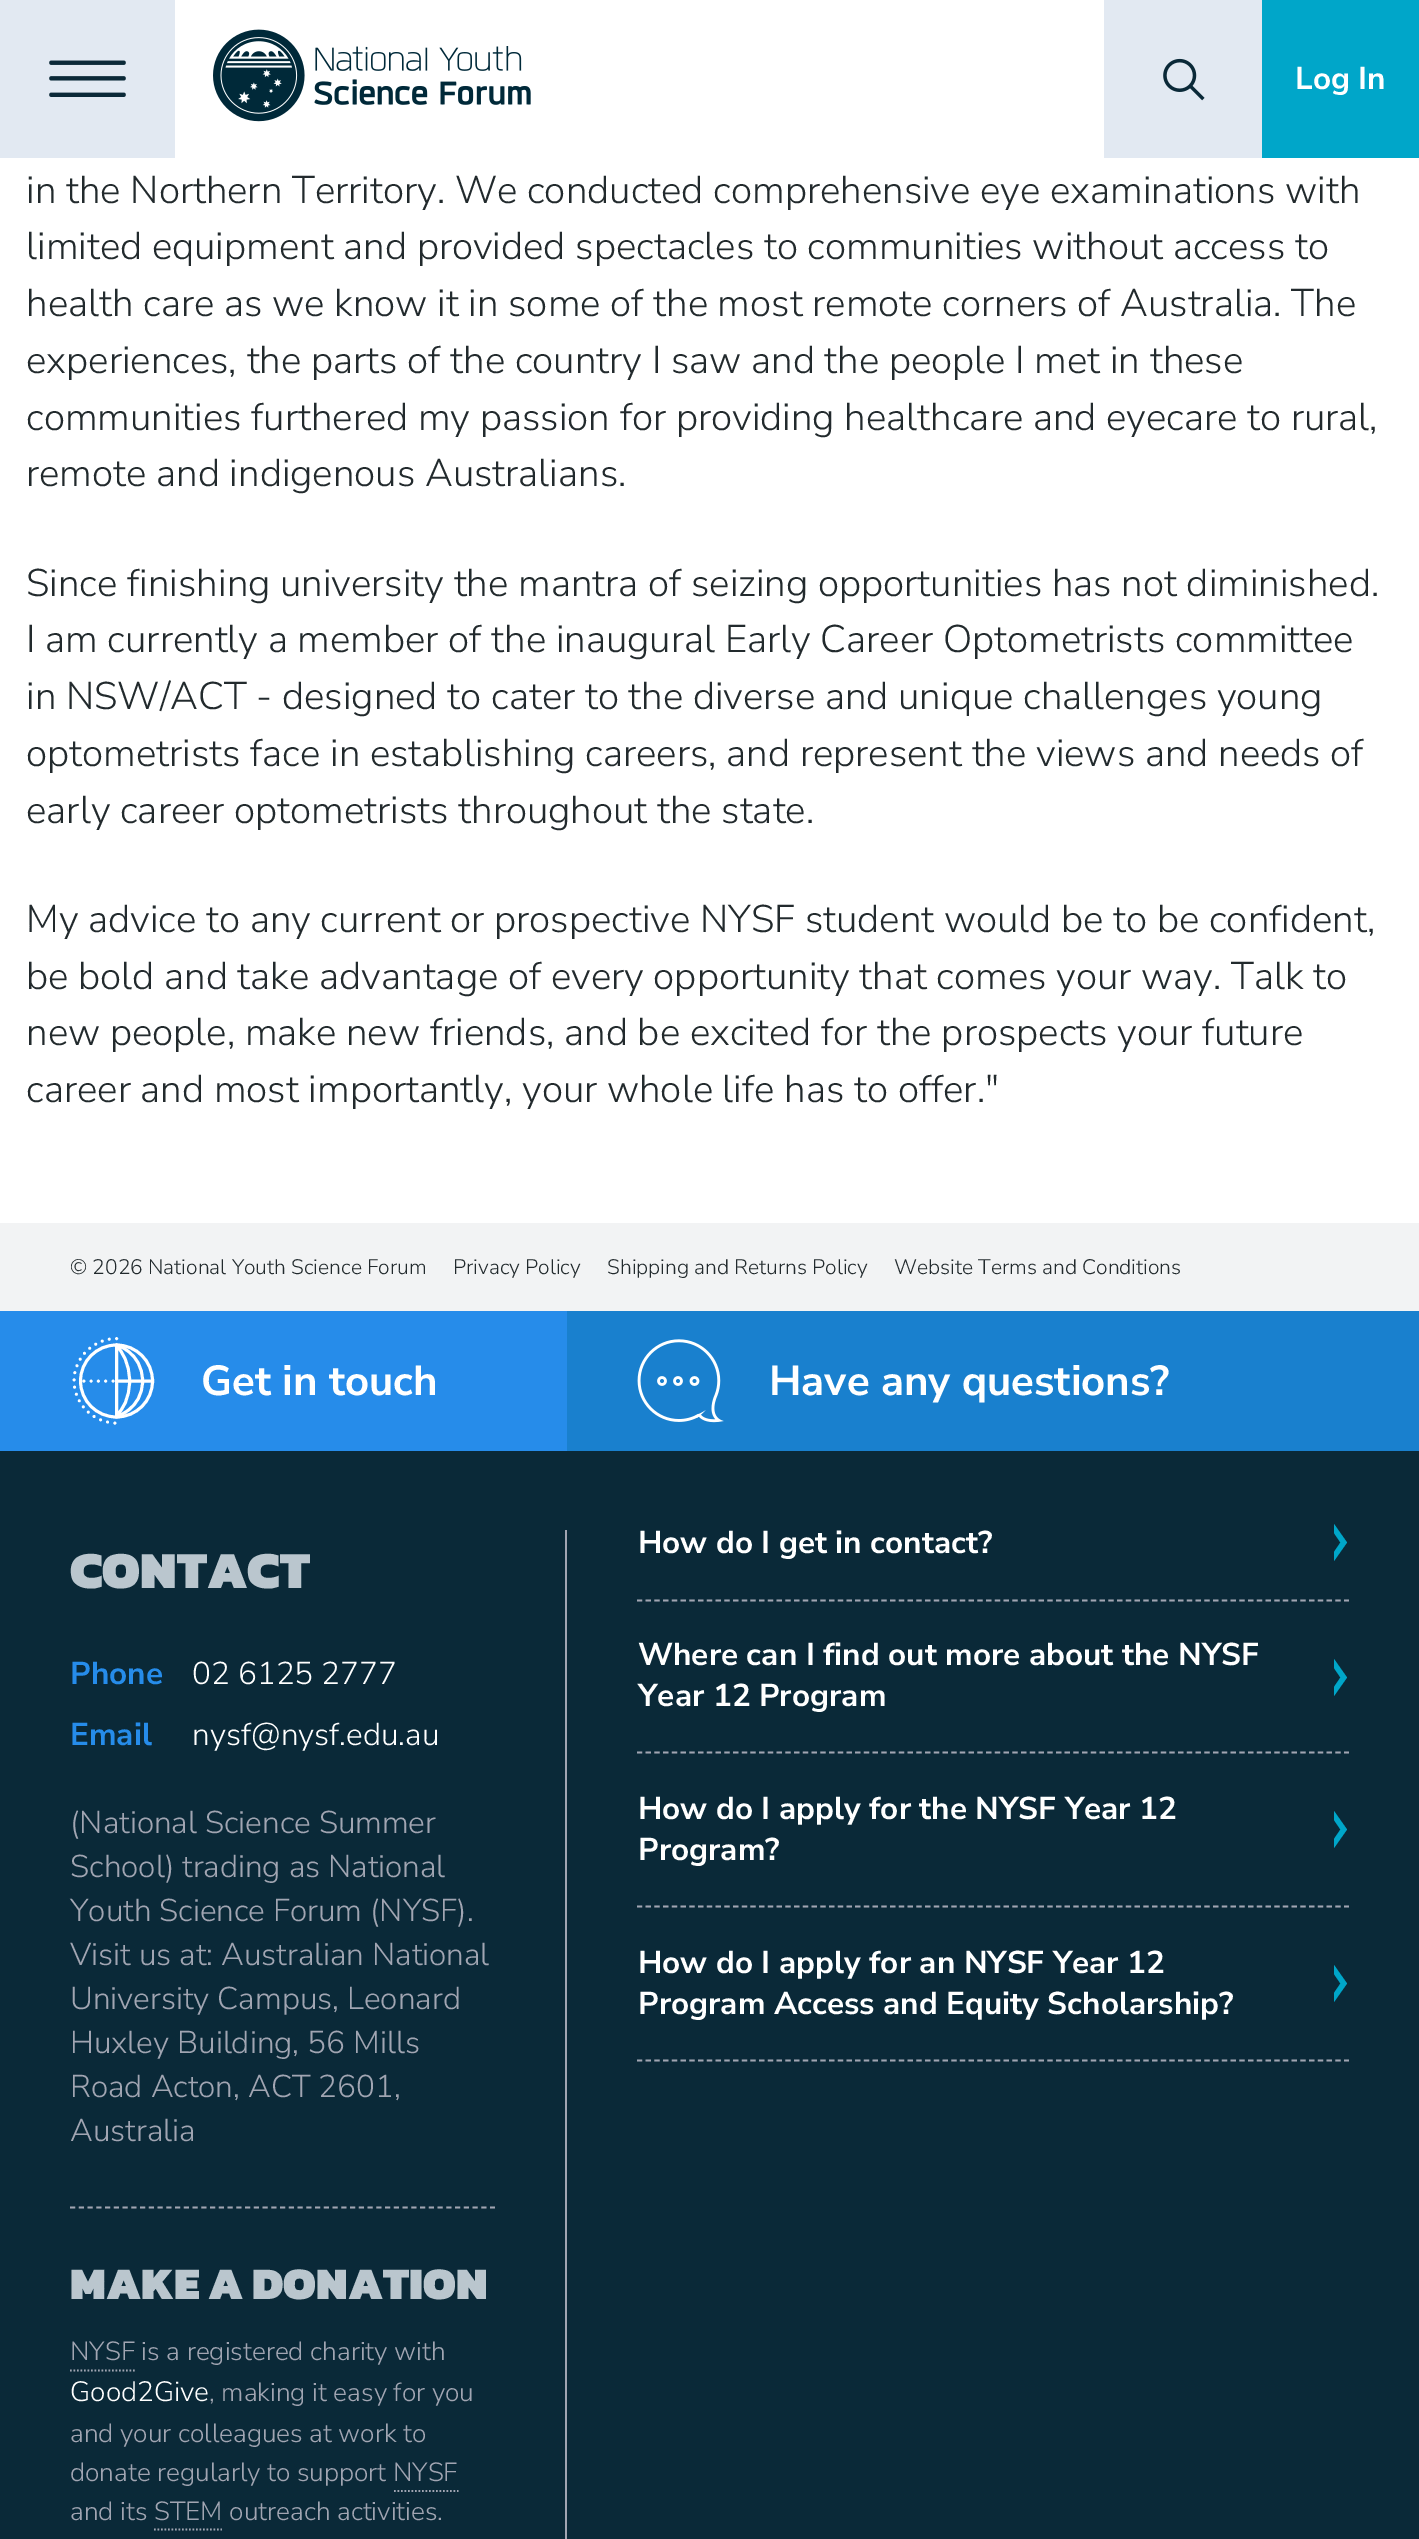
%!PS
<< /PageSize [1419 2539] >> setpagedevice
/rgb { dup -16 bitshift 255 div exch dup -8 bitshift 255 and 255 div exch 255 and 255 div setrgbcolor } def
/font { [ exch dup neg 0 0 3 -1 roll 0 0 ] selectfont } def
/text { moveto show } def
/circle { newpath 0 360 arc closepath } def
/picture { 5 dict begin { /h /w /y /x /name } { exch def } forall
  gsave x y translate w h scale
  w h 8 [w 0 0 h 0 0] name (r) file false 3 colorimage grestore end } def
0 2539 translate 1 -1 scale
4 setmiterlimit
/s1 { /NunitoSans-Bold 31.5 font 16#FFFFFF rgb } def
/s2 { /NunitoSans-Light 38.5 font 16#222A2D rgb } def
/s3 { /NunitoSans-Light 21 font 16#222A2D rgb } def
/s4 { /NunitoSans-Bold 42 font 16#FFFFFF rgb } def
/s5 { /Kanit-Black 52.5 font 16#BAC6CE rgb } def
/s6 { /NunitoSans-Bold 31.5 font 16#268CEA rgb } def
/s7 { /NunitoSans-Light 31.5 font 16#FFFFFF rgb } def
/s8 { /NunitoSans-Light 31.5 font 16#A1A5B2 rgb } def
/s9 { /Kanit-Black 45.5 font 16#BAC6CE rgb } def
/s10 { /NunitoSans-Light 26.25 font 16#A1A5B2 rgb } def
/s11 { /NunitoSans-Light 28 font 16#FFFFFF rgb } def
16#0A2938 rgb
0 0 1419 2539 rectfill
16#FFFFFF rgb
175 0 929 158 rectfill
16#E2E9F2 rgb
0 0 175 158 rectfill
(pic1.raw) 49 60 77 37 picture
(pic2.raw) 213 29 318 93 picture
1104 0 158 158 rectfill
(pic3.raw) 1163 58 42 43 picture
16#00A6C9 rgb
1262 0 157 158 rectfill
s1
(Log In) 1295 89 text
0 158 1419 1065 rectfill
s2
(in the Northern Territory. We conducted comprehensive eye examinations with) 26 203 text
(limited equipment and provided spectacles to communities without access to) 26 259 text
(health care as we know it in some of the most remote corners of Australia. The) 26 316 text
(experiences, the parts of the country I saw and the people I met in these) 26 373 text
(communities furthered my passion for providing healthcare and eyecare to rural,) 26 430 text
(remote and indigenous Australians.) 26 486 text
(Since finishing university the mantra of seizing opportunities has not diminished.) 26 596 text
(I am currently a member of the inaugural Early Career Optometrists committee) 26 652 text
(in NSW/ACT - designed to cater to the diverse and unique challenges young) 26 709 text
(optometrists face in establishing careers, and represent the views and needs of) 26 766 text
(early career optometrists throughout the state.) 26 823 text
(My advice to any current or prospective NYSF student would be to be confident,) 26 932 text
(be bold and take advantage of every opportunity that comes your way. Talk to) 26 989 text
(new people, make new friends, and be excited for the prospects your future) 26 1045 text
(career and most importantly, your whole life has to offer.") 26 1102 text
16#F2F3F4 rgb
0 1223 1419 88 rectfill
s3
(© 2026 National Youth Science Forum) 70 1274 text
(Privacy Policy) 453 1274 text
(Shipping and Returns Policy) 607 1274 text
(Website Terms and Conditions) 894 1274 text
16#268CEA rgb
0 1311 567 140 rectfill
16#FFFFFF rgb
2.9 setlinewidth
116.5 1381 36 circle stroke
1 setlinecap
[0 7.29] 0 setdash
116.5 1338.5 moveto 93 1338.5 74 1357.5 74 1381 curveto 74 1404 93 1423 116.5 1423 curveto stroke
0 setlinecap
[] 0 setdash
116.5 1345 moveto 116.5 1417 lineto 115.5 1344.5 moveto 115.5 1344.5 142.5 1352 142.5 1381 curveto 115.5 1417 moveto 115.5 1417 142.5 1409.5 142.5 1381 curveto 116 1345 moveto 122.5 1352 129.5 1363 129.5 1381 curveto 116 1416 moveto 123 1409.5 129.5 1398.5 129.5 1381 curveto 153.5 1381 moveto 116.5 1381 lineto stroke
1 setlinecap
[0 7.29] 0 setdash
113 1381 moveto 81 1381 lineto stroke
s4
(Get in touch) 201 1395 text
16#A1A5B2 rgb
565 1530 2 1009 rectfill
s5
(CONTACT) 70 1588 text
s6
(Phone) 70 1684 text
s7
(02 6125 2777) 192 1684 text
s6
(Email) 70 1745 text
s7
(nysf@nysf.edu.au) 192 1745 text
s8
(\(National Science Summer) 70 1833 text
(School\) trading as National) 70 1877 text
(Youth Science Forum \(NYSF\).) 70 1921 text
(Visit us at: Australian National) 70 1965 text
(University Campus, Leonard) 70 2009 text
(Huxley Building, 56 Mills) 70 2053 text
(Road Acton, ACT 2601,) 70 2097 text
(Australia) 70 2141 text
1.8 setlinewidth
0 setlinecap
[5.25 3.5] 0 setdash
70 2207.5 moveto 495 2207.5 lineto stroke
s9
(MAKE A DONATION) 70 2299 text
s10
(NYSF is a registered charity with) 70 2360 text
[1.75 1.75] 0 setdash
70 2370.5 moveto 135 2370.5 lineto stroke
s11
(Good2Give) 70 2401 text
s10
(, making it easy for you) 209 2401 text
(and your colleagues at work to) 70 2442 text
(donate regularly to support NYSF) 70 2481 text
394 2491 moveto 458.5 2491 lineto stroke
(and its STEM outreach activities.) 70 2520 text
154 2529.5 moveto 222 2529.5 lineto stroke
16#1980CE rgb
567 1311 852 140 rectfill
(pic4.raw) 637 1339 87 84 picture
s4
(Have any questions?) 769 1395 text
16#00A6C9 rgb
1340.5 1542.5 moveto 1334 1552 lineto 1334 1561 lineto 1347 1542.5 lineto 1334 1524 lineto 1334 1533 lineto closepath fill
16#A1A5B2 rgb
[5.25 3.48] 0 setdash
637 1600.5 moveto 1349 1600.5 lineto stroke
s1
(How do I get in contact?) 638 1553 text
16#00A6C9 rgb
1340.5 1677.5 moveto 1334 1687 lineto 1334 1696 lineto 1347 1677.5 lineto 1334 1659 lineto 1334 1668 lineto closepath fill
16#A1A5B2 rgb
637 1752.5 moveto 1349 1752.5 lineto stroke
s1
(Where can I find out more about the NYSF) 638 1665 text
(Year 12 Program) 638 1706 text
16#00A6C9 rgb
1340.5 1829.5 moveto 1334 1839 lineto 1334 1848 lineto 1347 1829.5 lineto 1334 1811 lineto 1334 1820 lineto closepath fill
16#A1A5B2 rgb
637 1906.5 moveto 1349 1906.5 lineto stroke
s1
(How do I apply for the NYSF Year 12) 638 1819 text
(Program?) 638 1860 text
16#00A6C9 rgb
1340.5 1983.5 moveto 1334 1993 lineto 1334 2002 lineto 1347 1983.5 lineto 1334 1965 lineto 1334 1974 lineto closepath fill
16#A1A5B2 rgb
637 2060.5 moveto 1349 2060.5 lineto stroke
s1
(How do I apply for an NYSF Year 12) 638 1973 text
(Program Access and Equity Scholarship?) 638 2014 text
showpage
